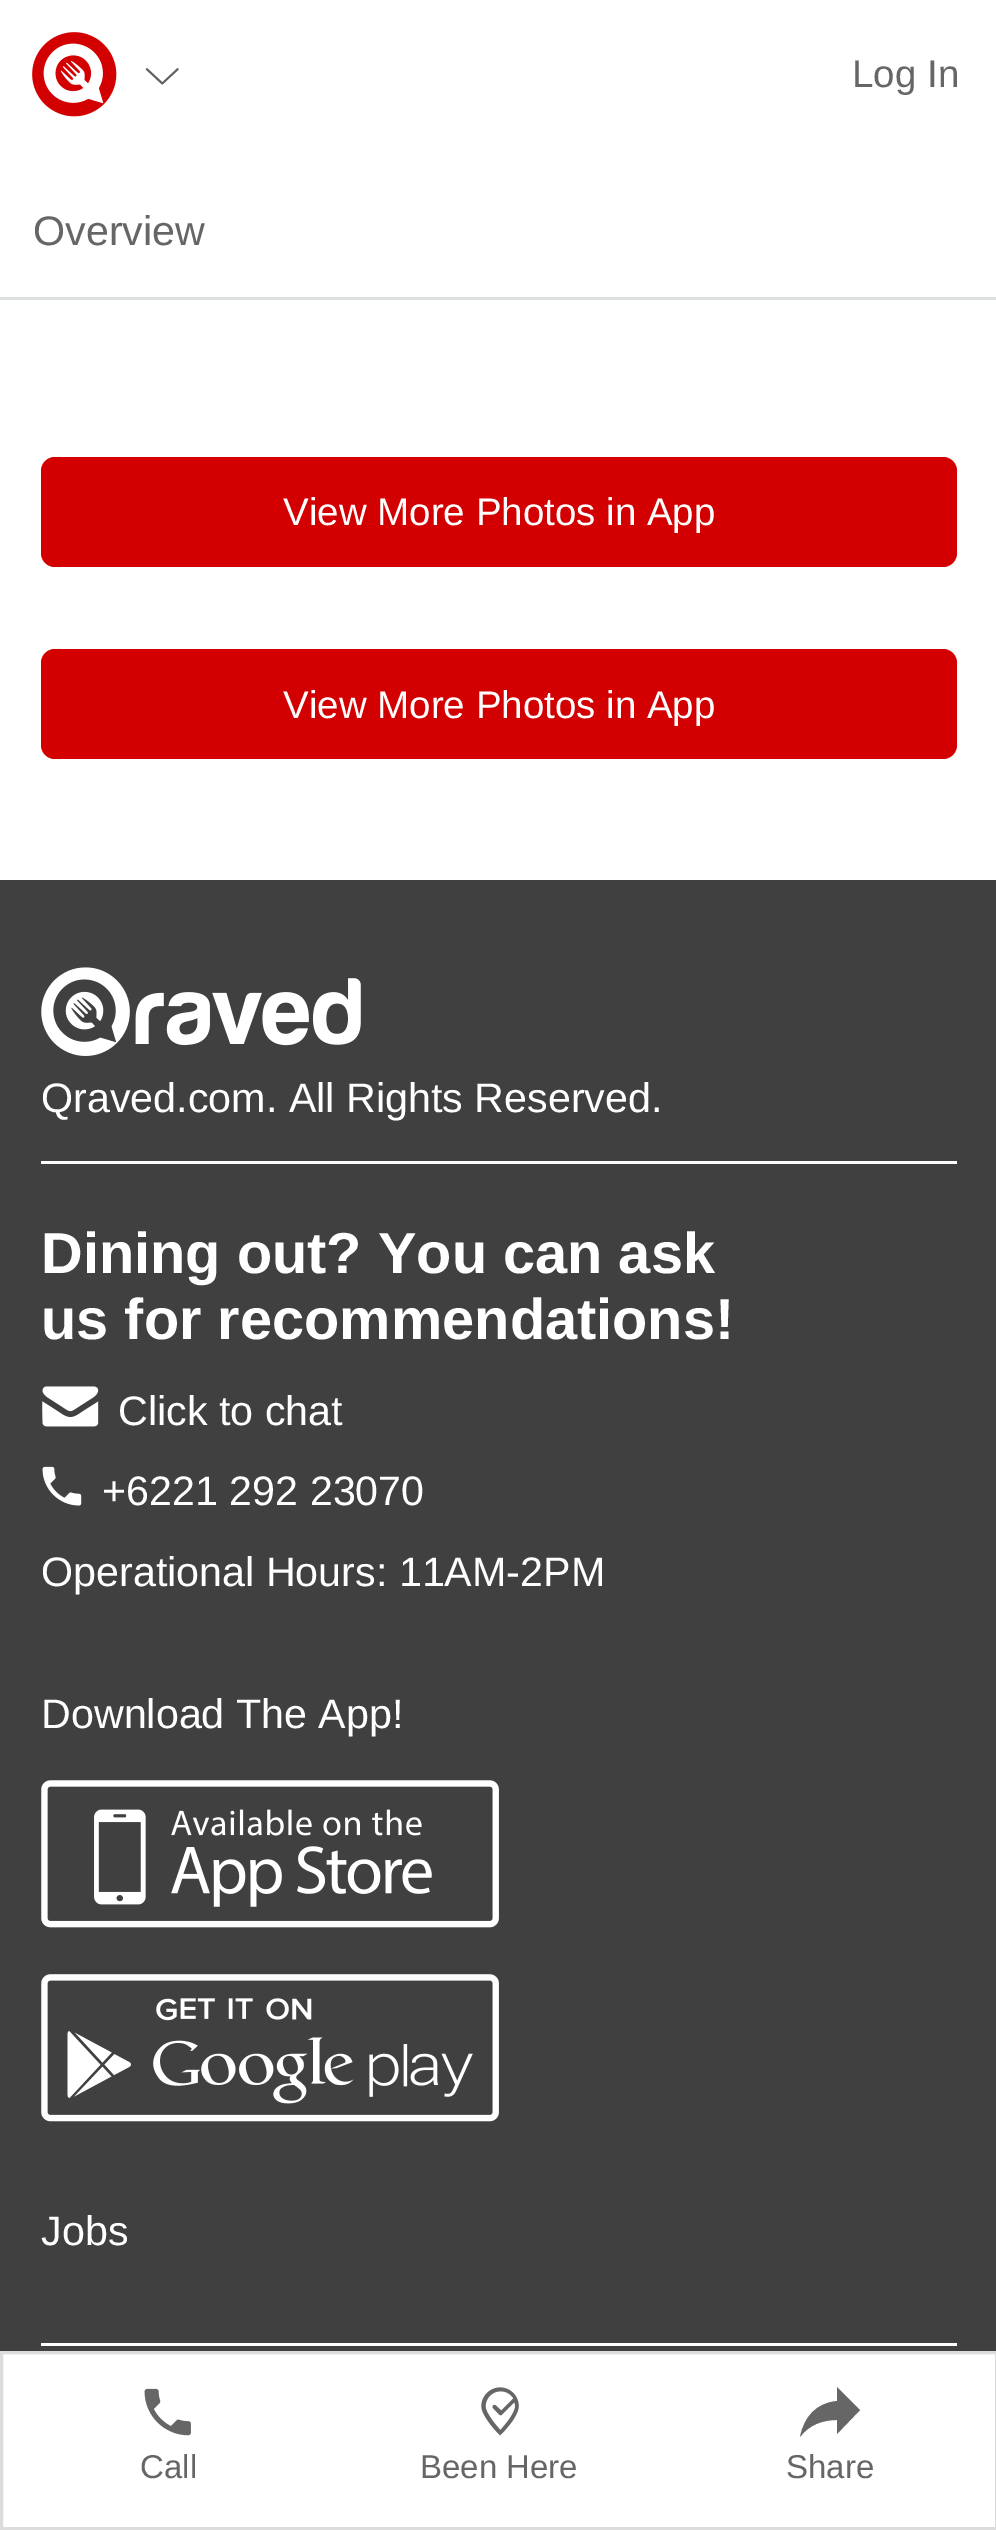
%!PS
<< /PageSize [996 2530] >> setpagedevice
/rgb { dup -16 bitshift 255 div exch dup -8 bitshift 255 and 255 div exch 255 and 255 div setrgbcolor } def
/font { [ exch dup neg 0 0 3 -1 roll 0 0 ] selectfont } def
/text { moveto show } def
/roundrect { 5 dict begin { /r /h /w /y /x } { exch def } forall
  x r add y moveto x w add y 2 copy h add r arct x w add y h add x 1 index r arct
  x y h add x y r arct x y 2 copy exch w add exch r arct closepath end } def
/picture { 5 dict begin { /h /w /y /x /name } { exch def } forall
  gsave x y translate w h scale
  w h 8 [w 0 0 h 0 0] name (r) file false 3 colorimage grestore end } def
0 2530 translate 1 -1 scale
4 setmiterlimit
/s1 { /LiberationSans-Regular 38.5 font 16#666666 rgb } def
/s2 { /LiberationSans-Regular 41.25 font 16#666666 rgb } def
/s3 { /LiberationSans-Regular 38.5 font 16#FFFFFF rgb } def
/s4 { /LiberationSans-Regular 33 font 16#666666 rgb } def
/s5 { /LiberationSans-Regular 41.25 font 16#FFFFFF rgb } def
/s6 { /LiberationSans-Bold 57.75 font 16#FFFFFF rgb } def
16#FFFFFF rgb
0 0 996 2530 rectfill
(pic1.raw) 32 32 85 85 picture
(pic2.raw) 145 68 34 17 picture
s1
(Log In) 852 87 text
16#DCE0E0 rgb
0 297 996 3 rectfill
s2
(Overview) 33 245 text
16#D20000 rgb
41 457 916 110 14 roundrect fill
s3
(View More Photos in App) 283 525 text
16#D20000 rgb
41 649 916 110 14 roundrect fill
s3
(View More Photos in App) 283 718 text
16#DCDCDC rgb
3 setlinewidth
1.5 2352.5 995 176 rectstroke
(pic3.raw) 144 2388 47 48 picture
s4
(Call) 140 2478 text
(pic4.raw) 481 2387 38 49 picture
(Been Here) 420 2478 text
837 2401 moveto 837 2387 lineto 860 2410 lineto 837 2434 lineto 837 2420 lineto 822 2420 809 2425 800 2437 curveto 804 2417 816 2403 837 2401 curveto closepath fill
(Share) 786 2478 text
16#404040 rgb
0 880 996 1471 rectfill
(pic5.raw) 41 967 320 89 picture
s5
(Qraved.com. All Rights Reserved.) 41 1112 text
41 1161 916 3 rectfill
41 2343 916 3 rectfill
s6
(Dining out? You can ask) 41 1273 text
(us for recommendations!) 41 1339 text
(pic6.raw) 42 1386 57 41 picture
s5
(Click to chat) 118 1425 text
(pic7.raw) 42 1466 40 40 picture
(+6221 292 23070) 102 1505 text
(Operational Hours: 11AM-2PM) 41 1586 text
(Download The App!) 41 1728 text
(pic8.raw) 41 1780 458 148 picture
(pic9.raw) 41 1974 458 148 picture
(Jobs) 41 2245 text
showpage
